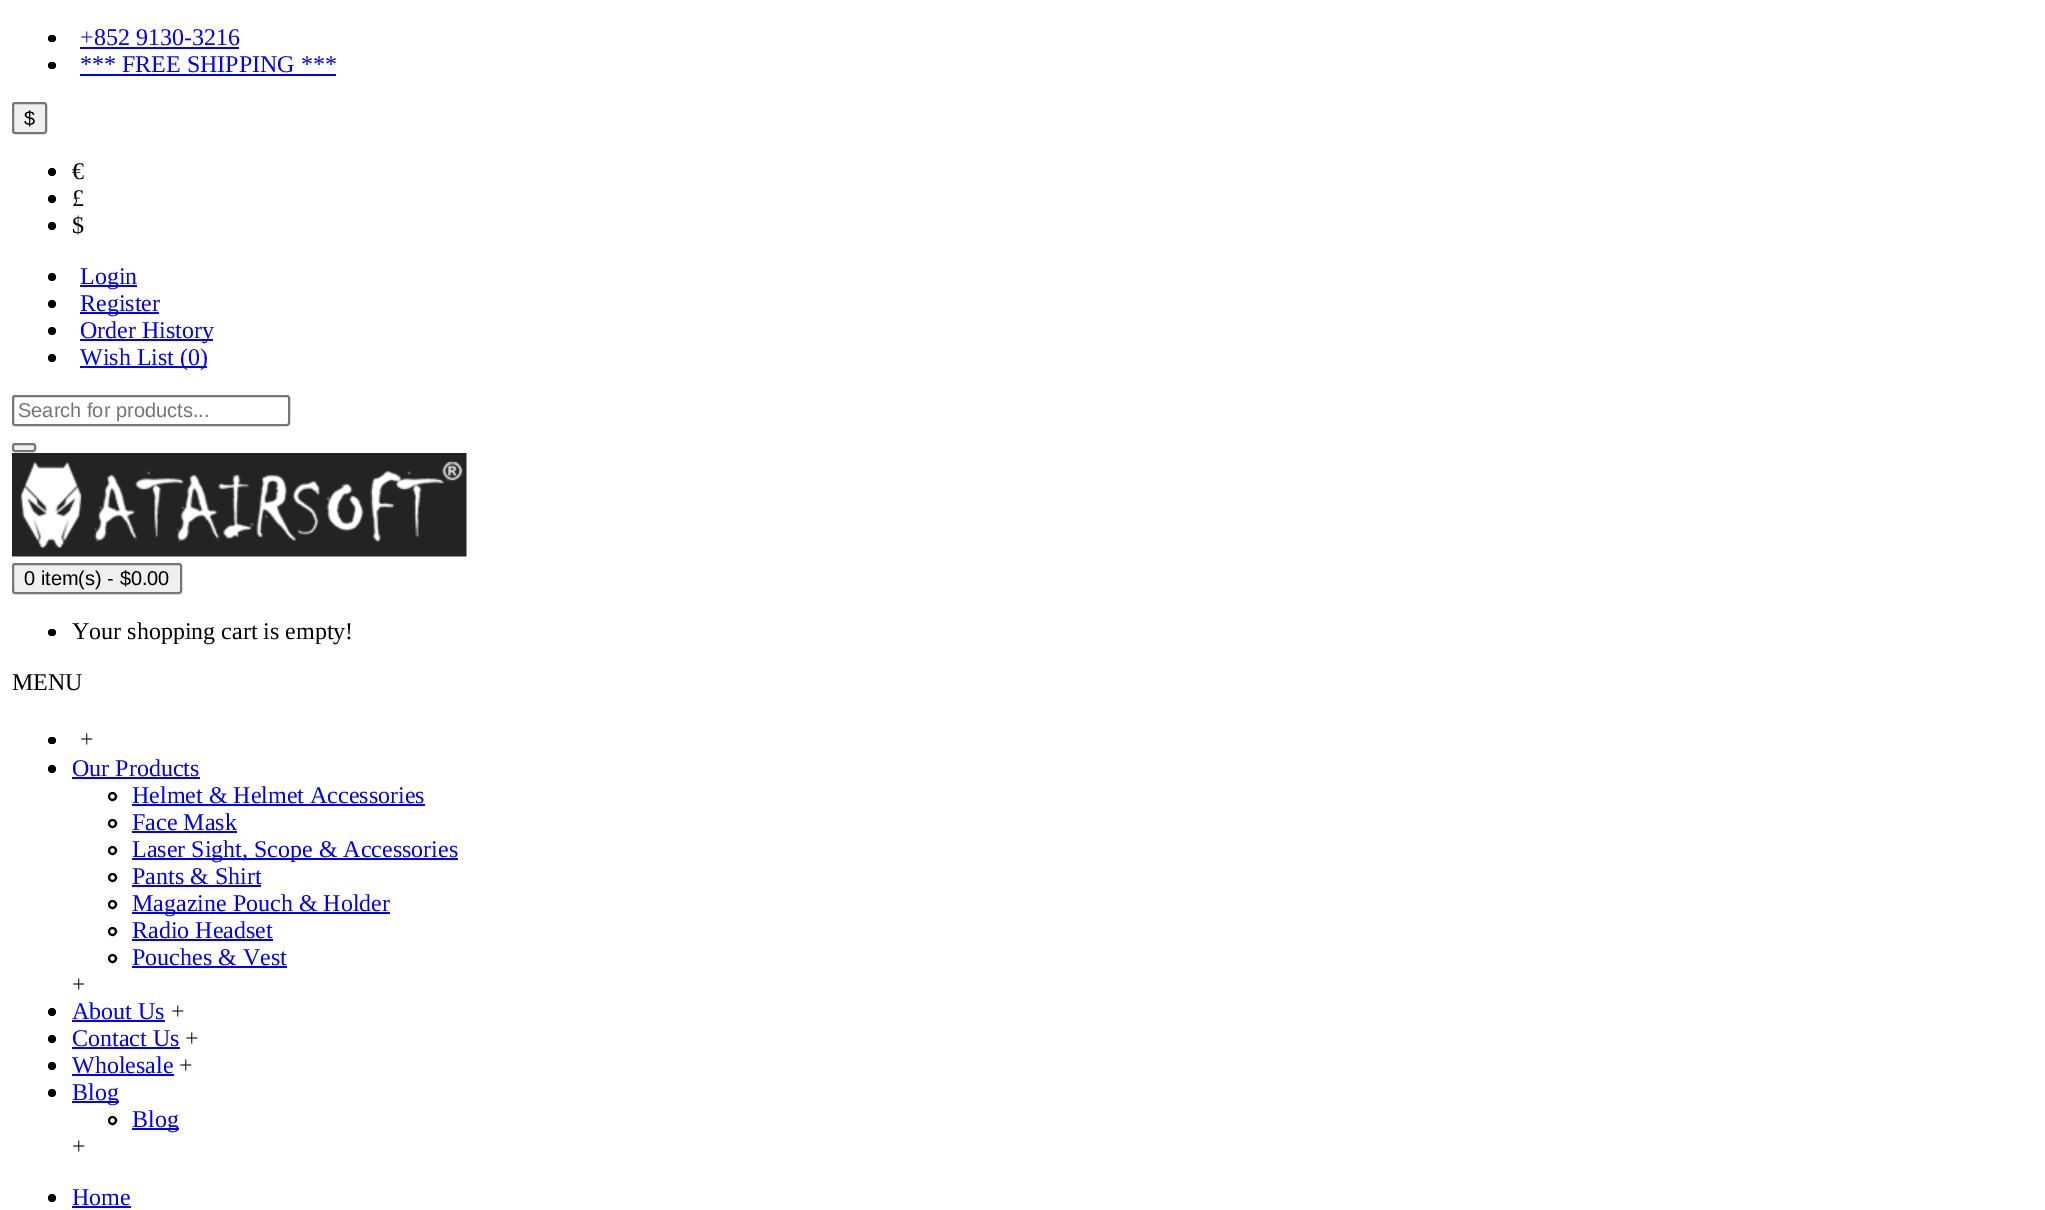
%!PS
<< /PageSize [2045 1210] >> setpagedevice
/rgb { dup -16 bitshift 255 div exch dup -8 bitshift 255 and 255 div exch 255 and 255 div setrgbcolor } def
/font { [ exch dup neg 0 0 3 -1 roll 0 0 ] selectfont } def
/text { moveto show } def
/circle { newpath 0 360 arc closepath } def
/roundrect { 5 dict begin { /r /h /w /y /x } { exch def } forall
  x r add y moveto x w add y 2 copy h add r arct x w add y h add x 1 index r arct
  x y h add x y r arct x y 2 copy exch w add exch r arct closepath end } def
/picture { 5 dict begin { /h /w /y /x /name } { exch def } forall
  gsave x y translate w h scale
  w h 8 [w 0 0 h 0 0] name (r) file false 3 colorimage grestore end } def
0 1210 translate 1 -1 scale
4 setmiterlimit
/s1 { /LiberationSerif-Regular 24 font 16#0000EE rgb } def
/s2 { /LiberationSans-Regular 20 font 16#000000 rgb } def
/s3 { /LiberationSerif-Regular 24 font 16#000000 rgb } def
/s4 { /LiberationSans-Regular 20 font 16#757575 rgb } def
16#FFFFFF rgb
0 0 2045 1210 rectfill
16#000000 rgb
48 35 8 7 3.5 roundrect fill
s1
(+852 9130-3216) 80 45 text
80 47 159 2 rectfill
16#000000 rgb
48 62 8 7 3.5 roundrect fill
s1
(*** FREE SHIPPING ***) 80 72 text
80 74 256 2 rectfill
16#EFEFEF rgb
13 103 33 30 2 roundrect gsave fill grestore
16#767676 rgb
2 setlinewidth
stroke
s2
($) 24 125 text
52 172 4 circle fill
s3
(€) 72 179 text
52 199 4 circle fill
(£) 72 206 text
52 226 4 circle fill
($) 72 233 text
52 277 4 circle fill
16#0000EE rgb
80 285 57 2 rectfill
(Login) 80 284 text
16#000000 rgb
52 304 4 circle fill
16#0000EE rgb
80 312 79 2 rectfill
(Register) 80 311 text
16#000000 rgb
52 331 4 circle fill
16#0000EE rgb
80 339 133 2 rectfill
(Order History) 80 338 text
16#000000 rgb
52 358 4 circle fill
16#0000EE rgb
80 366 127 2 rectfill
(Wish List \(0\)) 80 365 text
16#767676 rgb
13 396 276 29 2 roundrect stroke
s4
(Search for products...) 18 417 text
16#EFEFEF rgb
13 444 22 7 2 roundrect gsave fill grestore
16#767676 rgb
stroke
(pic1.raw) 12 453 455 104 picture
16#EFEFEF rgb
13 564 168 29 2 roundrect gsave fill grestore
16#767676 rgb
stroke
s2
(0 item\(s\) - $0.00) 24 585 text
48 629 8 7 3.5 roundrect fill
s3
(Your shopping cart is empty!) 72 639 text
(MENU) 12 690 text
48 737 8 7 3.5 roundrect fill
(+) 80 747 text
52 769 4 circle fill
s1
(Our Products) 72 776 text
72 777 128 2 rectfill
16#000000 rgb
112.5 796.5 3.5 circle stroke
s1
(Helmet & Helmet Accessories) 132 803 text
132 804 293 2 rectfill
16#000000 rgb
112.5 823.5 3.5 circle stroke
s1
(Face Mask) 132 830 text
132 831 105 2 rectfill
16#000000 rgb
112.5 850.5 3.5 circle stroke
16#0000EE rgb
132 858 326 2 rectfill
(Laser Sight, Scope & Accessories) 132 857 text
16#000000 rgb
112.5 877.5 3.5 circle stroke
s1
(Pants & Shirt) 132 884 text
132 885 129 2 rectfill
16#000000 rgb
112.5 904.5 3.5 circle stroke
16#0000EE rgb
132 912 258 2 rectfill
(Magazine Pouch & Holder) 132 911 text
16#000000 rgb
112.5 931.5 3.5 circle stroke
s1
(Radio Headset) 132 938 text
132 939 141 2 rectfill
16#000000 rgb
112.5 958.5 3.5 circle stroke
s1
(Pouches & Vest) 132 965 text
132 966 155 2 rectfill
s3
(+) 72 992 text
52 1012 4 circle fill
s1
(About Us) 72 1019 text
72 1020 93 2 rectfill
s3
(+) 171 1019 text
52 1039 4 circle fill
s1
(Contact Us) 72 1046 text
72 1047 108 2 rectfill
s3
(+) 185 1046 text
52 1066 4 circle fill
s1
(Wholesale) 72 1073 text
72 1074 102 2 rectfill
s3
(+) 179 1073 text
52 1093 4 circle fill
16#0000EE rgb
72 1101 47 2 rectfill
(Blog) 72 1100 text
16#000000 rgb
112.5 1120.5 3.5 circle stroke
16#0000EE rgb
132 1128 47 2 rectfill
(Blog) 132 1127 text
s3
(+) 72 1154 text
52 1198 4 circle fill
s1
(Home) 72 1205 text
72 1206 59 2 rectfill
showpage
